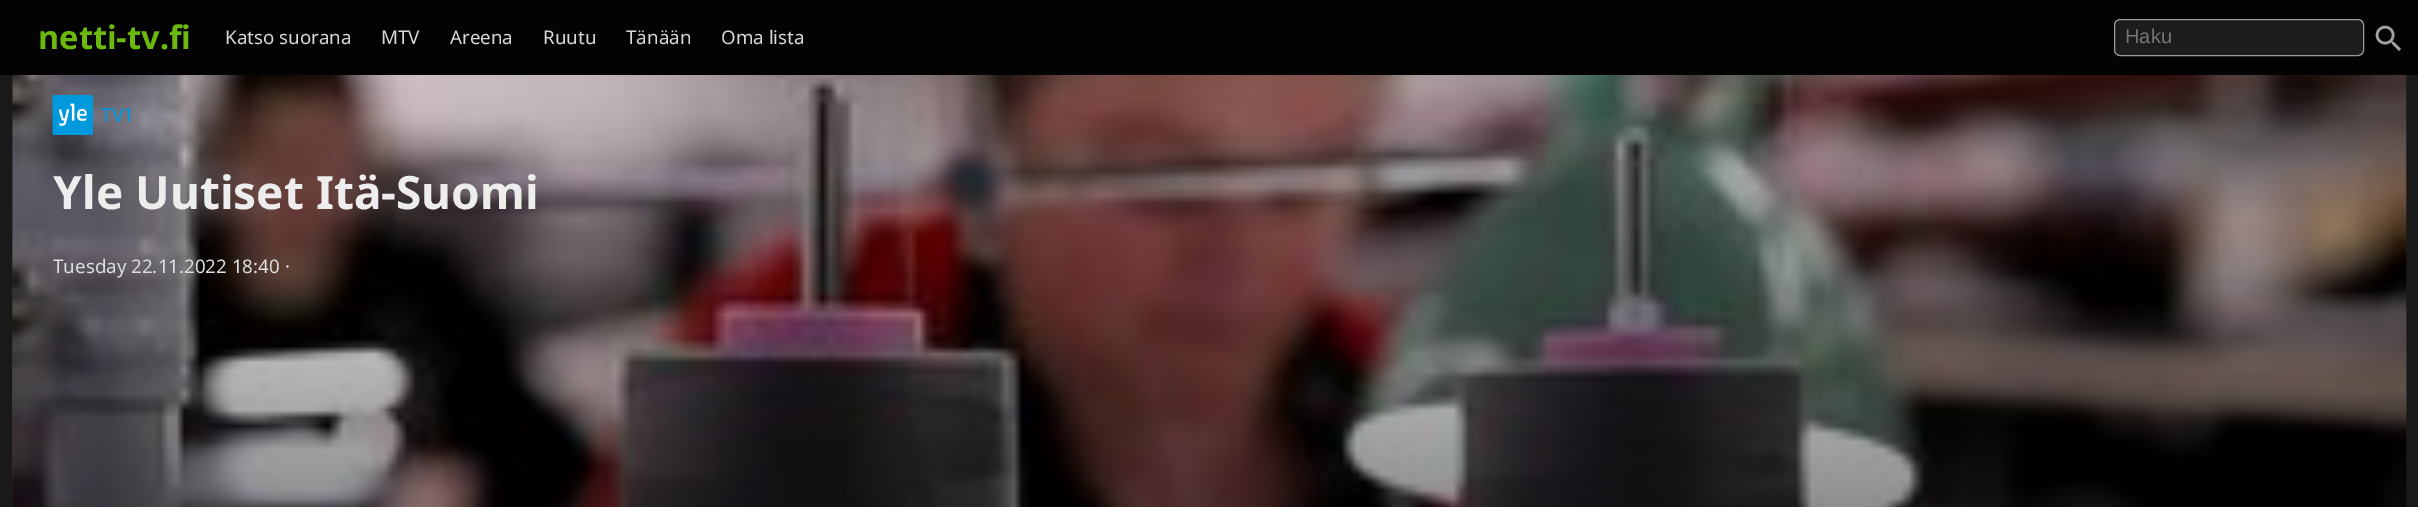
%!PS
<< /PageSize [2418 507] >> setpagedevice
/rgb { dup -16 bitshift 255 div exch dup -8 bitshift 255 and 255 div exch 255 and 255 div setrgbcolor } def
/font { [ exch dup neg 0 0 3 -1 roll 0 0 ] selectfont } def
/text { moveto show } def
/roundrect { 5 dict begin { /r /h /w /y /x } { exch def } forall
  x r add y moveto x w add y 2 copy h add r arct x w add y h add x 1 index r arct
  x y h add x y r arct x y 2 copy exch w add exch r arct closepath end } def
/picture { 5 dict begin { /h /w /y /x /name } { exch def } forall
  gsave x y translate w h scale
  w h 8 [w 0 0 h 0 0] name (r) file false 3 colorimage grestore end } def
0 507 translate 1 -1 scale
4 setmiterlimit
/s1 { /NotoSans-Bold 32.5 font 16#6BB80F rgb } def
/s2 { /NotoSans-Regular 18.75 font 16#D7D7D7 rgb } def
/s3 { /LiberationSans-Regular 20 font 16#757575 rgb } def
/s4 { /NotoSans-Bold 46 font 16#EEEDED rgb } def
/s5 { /NotoSans-Regular 18.75 font 16#DDDDDD rgb } def
16#191919 rgb
0 0 2418 507 rectfill
16#030303 rgb
0 0 2418 75 rectfill
s1
(netti-tv.fi) 38 49 text
s2
(Katso suorana) 225 44 text
(MTV) 381 44 text
(Areena) 450 44 text
(Ruutu) 543 44 text
(Tänään) 626 44 text
(Oma lista) 721 44 text
16#1C1C1C rgb
2114.5 19.5 249 36 5.5 roundrect gsave fill grestore
16#999999 rgb
stroke
s3
(Haku) 2125 43 text
(pic1.raw) 2375 25 26 26 picture
(pic2.raw) 12 75 2395 432 picture
(pic3.raw) 52 95 78 40 picture
s4
(Yle Uutiset Itä-Suomi) 53 209 text
s5
(Tuesday 22.11.2022 18:40 ·) 53 273 text
showpage
